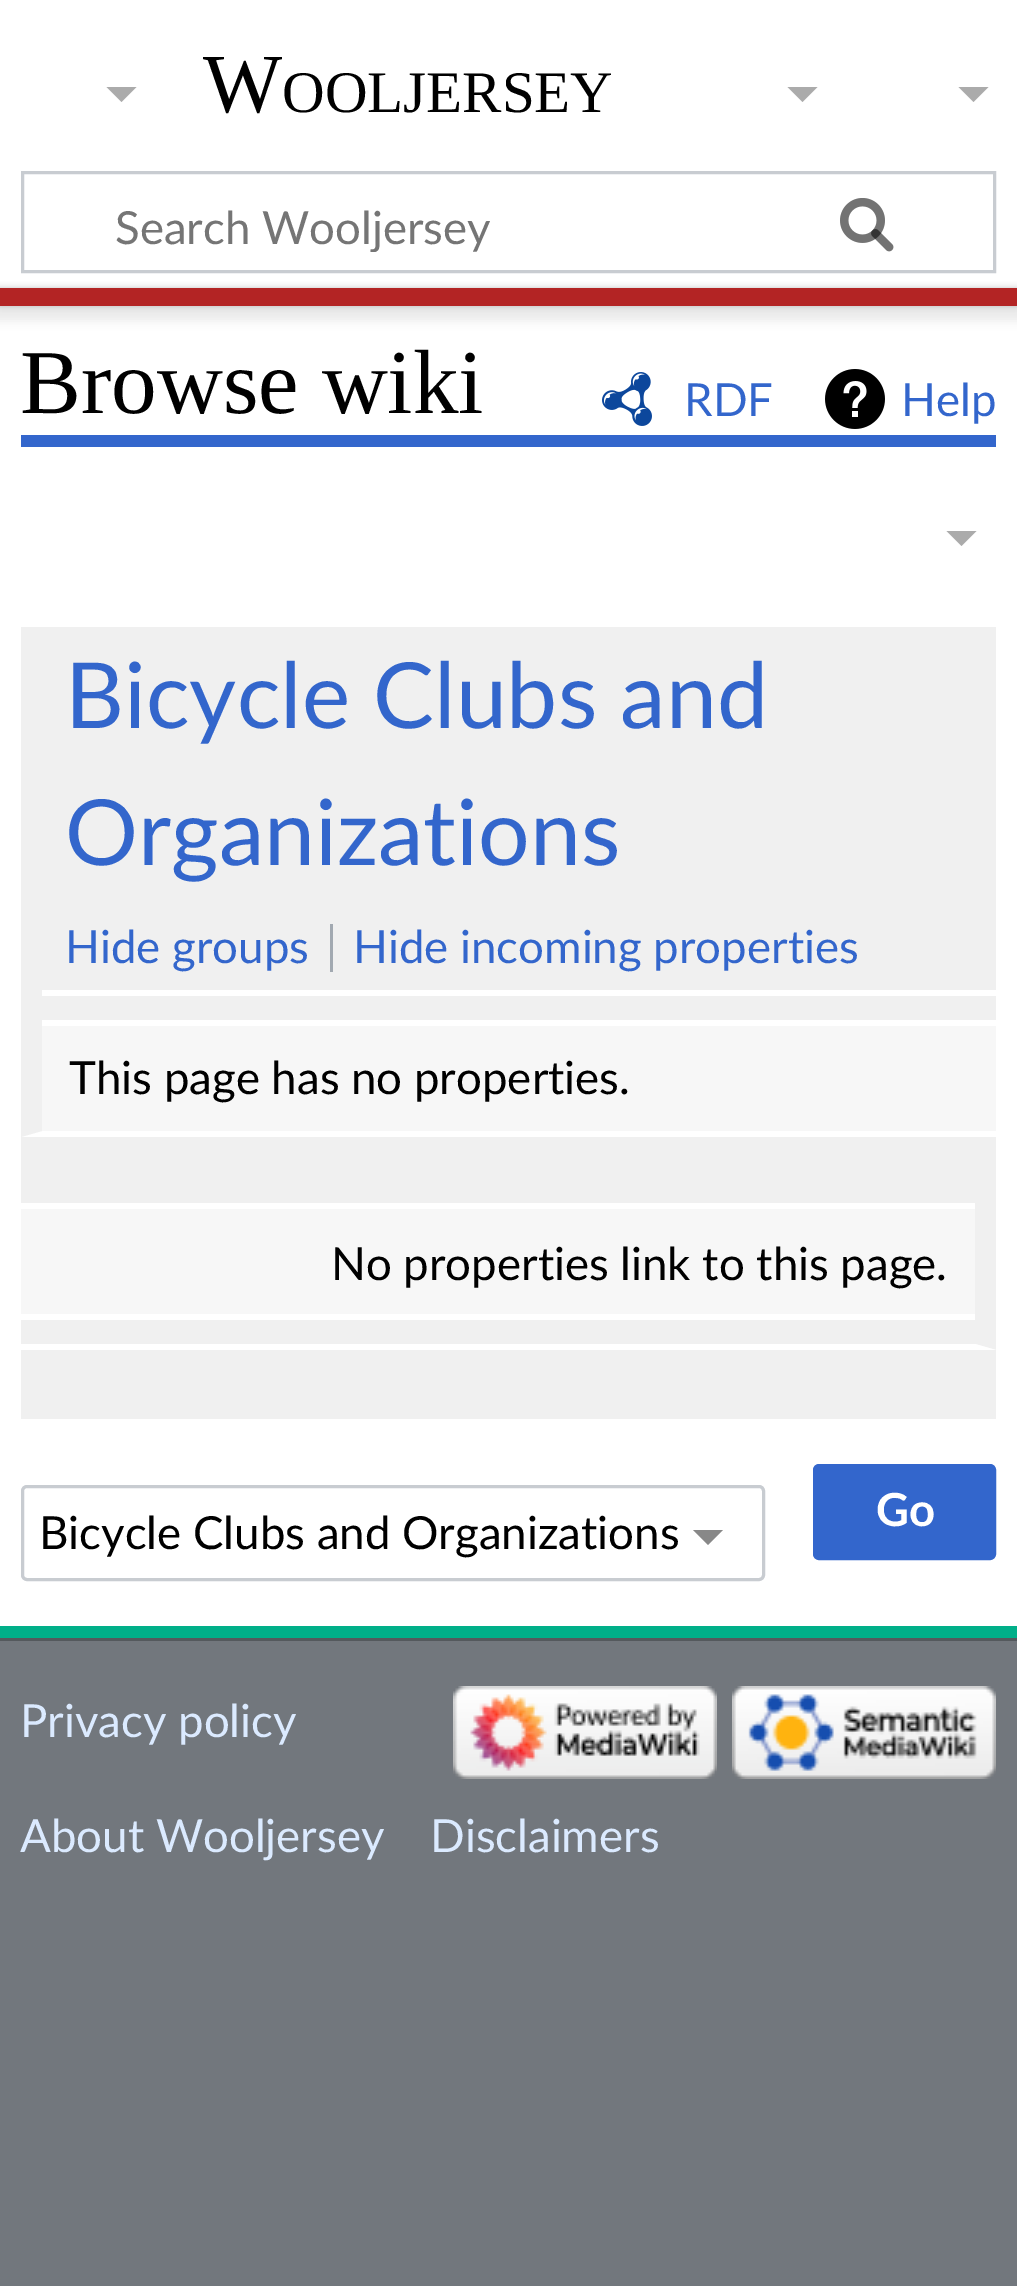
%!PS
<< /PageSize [1017 2286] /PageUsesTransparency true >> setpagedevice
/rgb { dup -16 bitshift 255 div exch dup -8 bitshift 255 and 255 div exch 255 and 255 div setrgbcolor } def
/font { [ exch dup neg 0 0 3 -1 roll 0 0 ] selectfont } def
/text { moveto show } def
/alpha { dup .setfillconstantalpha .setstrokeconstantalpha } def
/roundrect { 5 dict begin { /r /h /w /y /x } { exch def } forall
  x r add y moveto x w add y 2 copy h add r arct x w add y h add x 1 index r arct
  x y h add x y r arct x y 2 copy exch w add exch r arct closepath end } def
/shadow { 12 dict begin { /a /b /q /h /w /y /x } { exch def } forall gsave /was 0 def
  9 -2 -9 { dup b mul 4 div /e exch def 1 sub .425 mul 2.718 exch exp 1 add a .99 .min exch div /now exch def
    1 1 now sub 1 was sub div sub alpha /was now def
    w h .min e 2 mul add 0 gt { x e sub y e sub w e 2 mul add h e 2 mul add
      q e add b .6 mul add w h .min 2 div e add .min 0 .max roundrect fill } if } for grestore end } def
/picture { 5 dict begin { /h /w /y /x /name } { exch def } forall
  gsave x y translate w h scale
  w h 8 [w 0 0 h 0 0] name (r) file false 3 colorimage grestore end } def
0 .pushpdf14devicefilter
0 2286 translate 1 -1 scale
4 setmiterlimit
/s1 { /LiberationSerif-Regular 84 font 16#000000 rgb } def
/s2 { /LiberationSerif-Regular 59 font 16#000000 rgb } def
/s3 { /Lato-Regular 45.6 font 16#757575 rgb } def
/s4 { /LiberationSerif-Regular 91.25 font 16#000000 rgb } def
/s5 { /Lato-Regular 45.6 font 16#3366CC rgb } def
/s6 { /Lato-Regular 91.25 font 16#3366CC rgb } def
/s7 { /Lato-Regular 45.6 font 16#000000 rgb } def
/s8 { /Lato-Bold 45.6 font 16#FFFFFF rgb } def
/s9 { /Lato-Regular 45.6 font 16#DBEAFF rgb } def
16#72777D rgb
0 0 1017 2286 rectfill
16#FFFFFF rgb
0 0 1017 288 rectfill
s1
(W) 203 112 text
s2
(OOLJERSEY) 282 112 text
16#ABABAB rgb
988.5 87 moveto 973.5 102 lineto 958.5 87 lineto closepath fill
16#C8CCD1 rgb
3 setlinewidth
22.5 172.5 972 99 rectstroke
(pic1.raw) 840 198 54 54 picture
gsave
114 198 663 54 rectclip
s3
(Search Wooljersey) 115 244 text
grestore
(pic2.raw) 840 198 54 54 picture
16#FFFFFF rgb
0 306 1017 1320 rectfill
16#000000 rgb
0 288 1017 18 0 3 0.2 shadow
-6 291 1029 30 0 4.5 0.07 shadow
16#B32424 rgb
0 288 1017 18 rectfill
16#00AF89 rgb
0 1626 1017 12 rectfill
16#ABABAB rgb
136.5 87 moveto 121.5 102 lineto 106.5 87 lineto closepath fill
817.5 87 moveto 802.5 102 lineto 787.5 87 lineto closepath fill
16#3366CC rgb
21 435 975 12 rectfill
s4
(Browse wiki) 20 413 text
(pic3.raw) 602 372 50 54 picture
s5
(RDF) 684 416 text
(pic4.raw) 825 369 60 60 picture
(Help) 901 416 text
16#ABABAB rgb
976.5 531 moveto 961.5 546 lineto 946.5 531 lineto closepath fill
16#F0F0F0 rgb
21 627 975 273 rectfill
s6
(Bicycle Clubs and) 65 728 text
(Organizations) 65 865 text
16#F0F0F0 rgb
21 900 975 90 rectfill
s5
(Hide groups) 65 963 text
16#A2A9B1 rgb
330 924 3 48 rectfill
s5
(Hide incoming properties) 353 963 text
16#F0F0F0 rgb
21 1137 moveto 21 990 lineto 42 990 lineto 42 1131 lineto closepath fill
42 996 954 24 rectfill
16#F7F7F7 rgb
42 1026 954 105 rectfill
s7
(This page has no properties.) 69 1094 text
16#F0F0F0 rgb
21 1137 975 66 rectfill
996 1203 moveto 996 1350 lineto 975 1344 lineto 975 1203 lineto closepath fill
16#FFFFFF rgb
996 1350 moveto 21 1350 lineto 21 1344 lineto 975 1344 lineto closepath fill
16#F7F7F7 rgb
21 1209 954 105 rectfill
s7
(No properties link to this page.) 331 1280 text
16#F0F0F0 rgb
21 1320 954 24 rectfill
21 1350 975 69 rectfill
16#3366CC rgb
814.5 1465.5 180 93 4.5 roundrect gsave fill grestore
stroke
s8
(Go) 876 1526 text
16#888888 rgb
693 1530 moveto 708 1545 lineto 723 1530 lineto closepath fill
16#C8CCD1 rgb
22.5 1486.5 741 93 4.5 roundrect stroke
s7
(Bicycle Clubs and Organizations) 39 1549 text
16#54595D rgb
0 1638 1017 3 rectfill
s9
(Privacy policy) 20 1737 text
(About Wooljersey) 20 1852 text
(Disclaimers) 430 1852 text
(pic5.raw) 453 1686 264 93 picture
(pic6.raw) 732 1686 264 93 picture
.poppdf14devicefilter showpage
